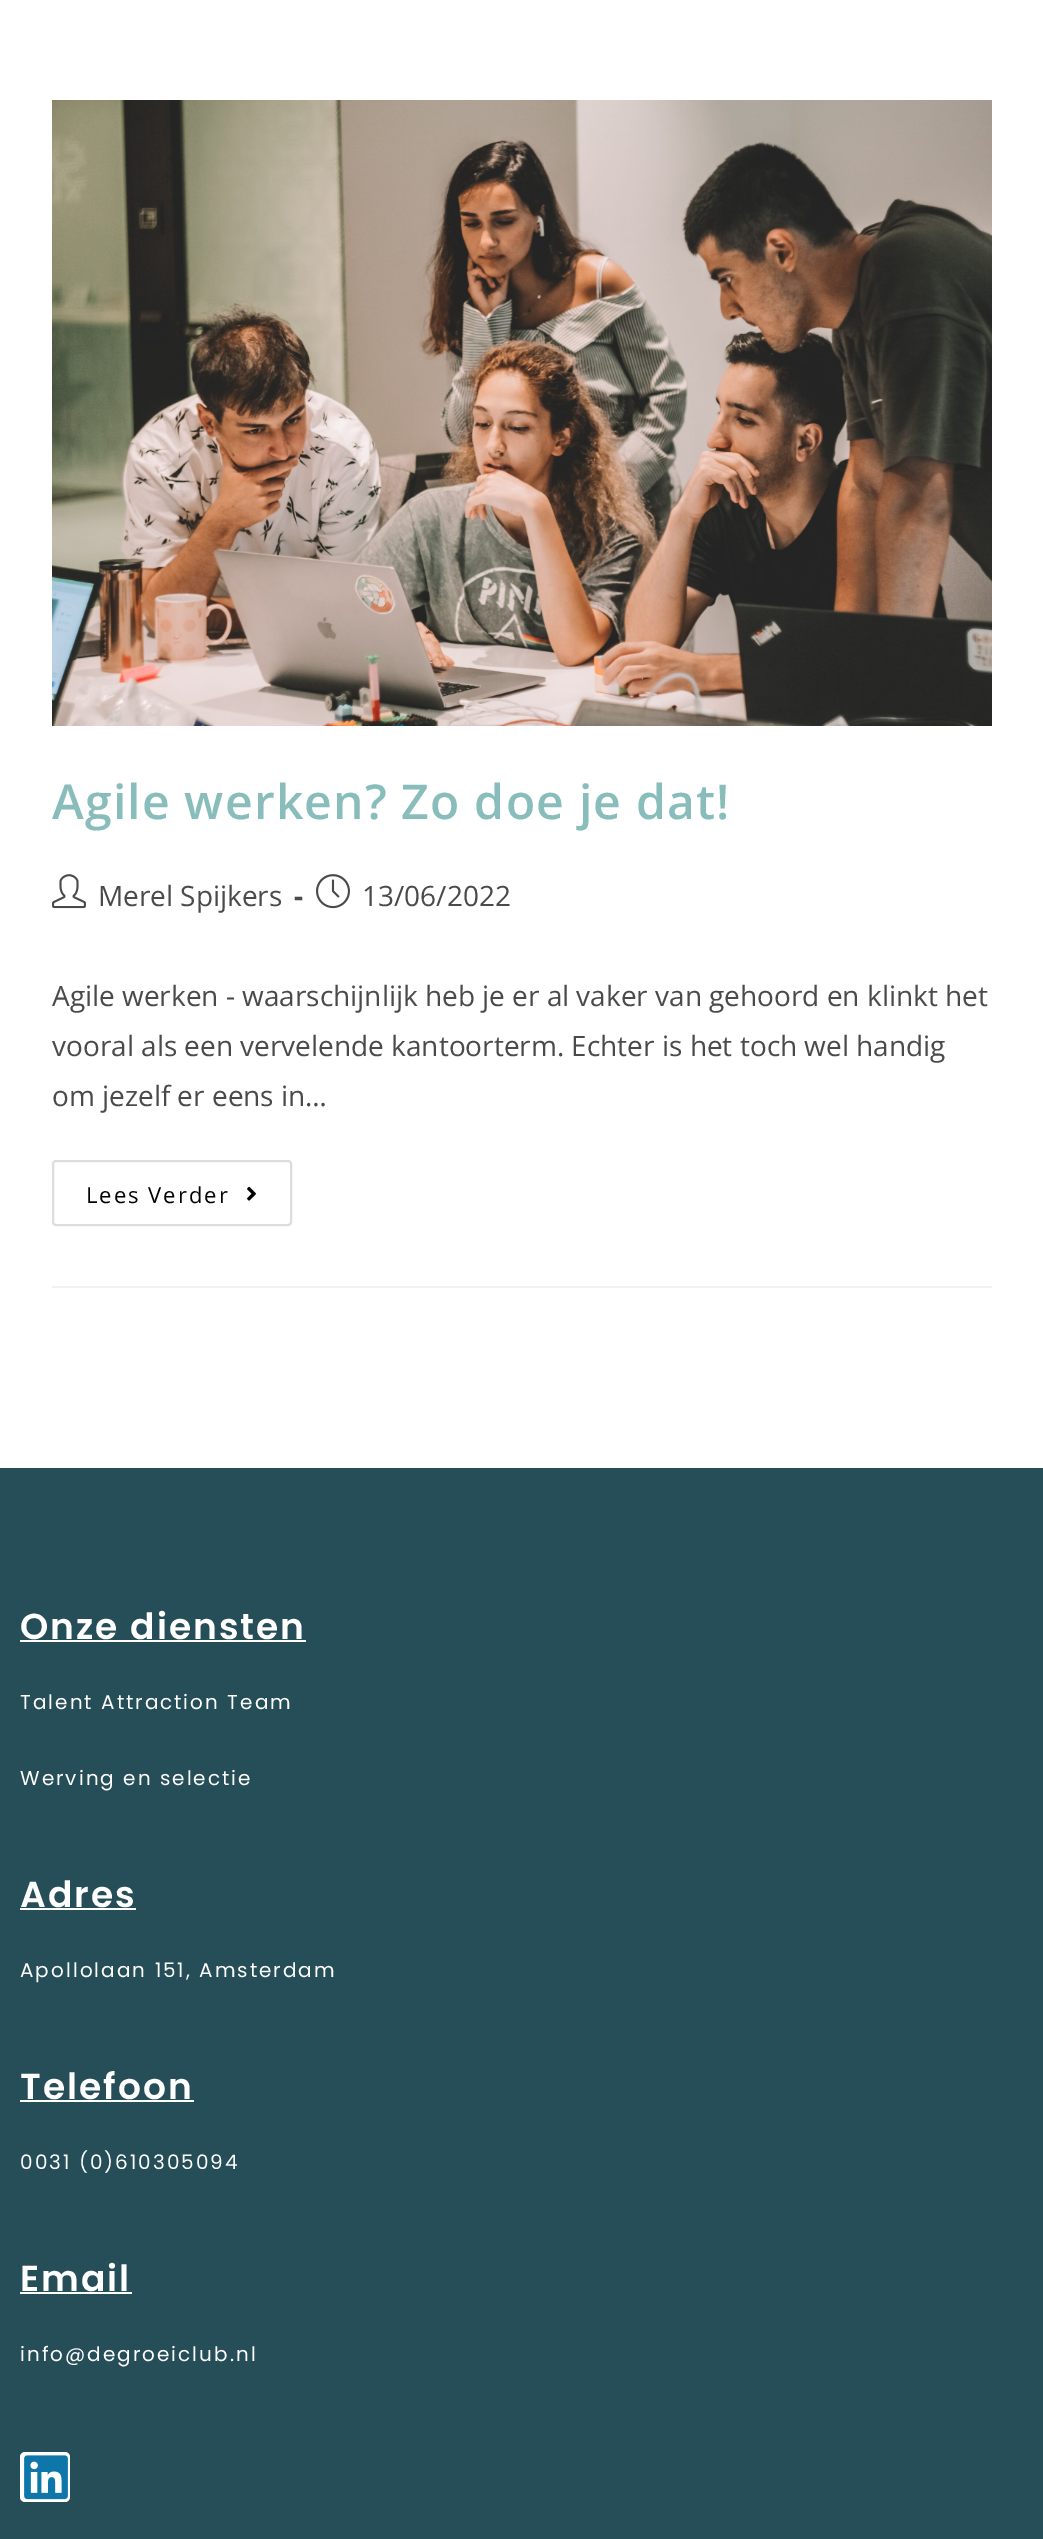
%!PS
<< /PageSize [1043 2539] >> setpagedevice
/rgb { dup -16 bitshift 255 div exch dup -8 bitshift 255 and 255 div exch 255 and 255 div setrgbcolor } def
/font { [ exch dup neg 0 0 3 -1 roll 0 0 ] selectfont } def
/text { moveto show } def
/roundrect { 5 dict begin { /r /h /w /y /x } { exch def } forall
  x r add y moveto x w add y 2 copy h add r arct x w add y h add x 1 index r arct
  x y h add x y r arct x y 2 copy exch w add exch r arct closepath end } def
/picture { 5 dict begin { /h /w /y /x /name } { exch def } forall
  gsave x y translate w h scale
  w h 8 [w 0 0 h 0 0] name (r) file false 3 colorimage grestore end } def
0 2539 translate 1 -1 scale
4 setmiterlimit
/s1 { /OpenSans-Regular 28 font 16#4A4A4A rgb } def
/s2 { /OpenSans-Bold 28 font 16#4A4A4A rgb } def
16#FFFFFF rgb
0 0 1043 2539 rectfill
16#F1F1F1 rgb
52 1286 940 2 rectfill
(pic1.raw) 52 100 940 626 picture
/OpenSans-SemiBold 48 font
16#88BDBC rgb
52 819 moveto 1.2 0 (Agile werken? Zo doe je dat!) ashow
(pic2.raw) 52 874 34 35 picture
s1
(Merel Spijkers) 98 906 text
s2
(-) 294 906 text
(pic3.raw) 316 874 34 35 picture
s1
(13/06/2022) 362 906 text
(Agile werken - waarschijnlijk heb je er al vaker van gehoord en klinkt het) 52 1006 text
(vooral als een vervelende kantoorterm. Echter is het toch wel handig) 52 1056 text
(om jezelf er eens in…) 52 1106 text
16#DDDDDD rgb
2 setlinewidth
53 1161 238 64 3 roundrect stroke
/OpenSans-Regular 22 font
16#020202 rgb
86 1203 moveto 2 0 (Lees Verder) ashow
(pic4.raw) 247 1186 9 15 picture
16#254E58 rgb
0 1468 1043 1071 rectfill
/Poppins-SemiBold 36 font
16#FFFFFF rgb
20 1639 moveto 2 0 (Onze diensten) ashow
20 1640 286 2 rectfill
/Poppins-Regular 20 font
20 1709 moveto 2 0 (Talent Attraction Team) ashow
20 1785 moveto 2 0 (Werving en selectie) ashow
/Poppins-SemiBold 36 font
20 1907 moveto 2 0 (Adres) ashow
20 1908 116 2 rectfill
/Poppins-Regular 20 font
20 1977 moveto 2 0 (Apollolaan 151, Amsterdam) ashow
/Poppins-SemiBold 36 font
20 2099 moveto 2 0 (Telefoon) ashow
20 2100 174 2 rectfill
/Poppins-Regular 20 font
20 2169 moveto 2 0 (0031 \(0\)610305094) ashow
/Poppins-SemiBold 36 font
20 2291 moveto 2 0 (Email) ashow
20 2292 112 2 rectfill
/Poppins-Regular 20 font
20 2361 moveto 2 0 (info@degroeiclub.nl) ashow
20 2452 50 50 5 roundrect fill
(pic5.raw) 24 2455 44 45 picture
showpage
